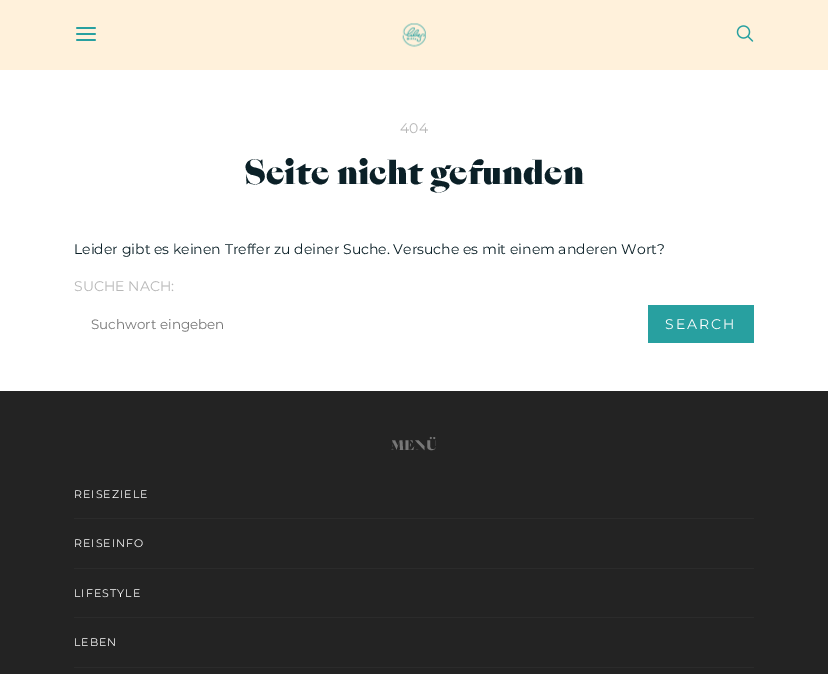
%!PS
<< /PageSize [828 674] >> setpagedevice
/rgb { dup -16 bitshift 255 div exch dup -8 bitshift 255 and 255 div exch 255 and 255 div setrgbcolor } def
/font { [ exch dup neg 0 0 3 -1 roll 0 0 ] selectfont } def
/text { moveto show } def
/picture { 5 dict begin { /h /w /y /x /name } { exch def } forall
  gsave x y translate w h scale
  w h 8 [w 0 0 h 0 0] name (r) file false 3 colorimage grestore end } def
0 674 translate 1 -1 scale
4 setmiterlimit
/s1 { /Montserrat-Regular 14 font 16#B7B7B7 rgb } def
/s2 { /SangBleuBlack-Black 32 font 16#0B2027 rgb } def
/s3 { /Montserrat-Regular 14 font 16#0B2027 rgb } def
/s4 { /Montserrat-Regular 13.5 font 16#777777 rgb } def
/s5 { /SangBleuBlack-Black 13 font 16#777777 rgb } def
16#FFFFFF rgb
0 0 828 674 rectfill
16#FFF1DB rgb
0 0 828 70 rectfill
(pic1.raw) 76 27 20 14 picture
(pic2.raw) 402 23 24 24 picture
(pic3.raw) 736 25 18 17 picture
s1
(404) 400 133 text
s2
(Seite nicht gefunden) 244 184 text
s3
(Leider gibt es keinen Treffer zu deiner Suche. Versuche es mit einem anderen Wort?) 74 254 text
s1
(SUCHE NACH:) 74 291 text
s4
(Suchwort eingeben) 91 329 text
16#28A0A0 rgb
648 305 106 38 rectfill
/Montserrat-Regular 14 font
16#FFFFFF rgb
665 329 moveto 2 0 (SEARCH) ashow
16#232323 rgb
0 391 828 283 rectfill
s5
(MENÜ) 391 450 text
/Montserrat-Regular 11 font
16#FFFFFF rgb
74 498 moveto 1 0 (REISEZIELE) ashow
16#2B2B2B rgb
74 518 680 1 rectfill
16#FFFFFF rgb
74 547 moveto 1 0 (REISEINFO) ashow
16#2B2B2B rgb
74 568 680 1 rectfill
16#FFFFFF rgb
74 597 moveto 1 0 (LIFESTYLE) ashow
16#2B2B2B rgb
74 617 680 1 rectfill
16#FFFFFF rgb
74 646 moveto 1 0 (LEBEN) ashow
16#2B2B2B rgb
74 667 680 1 rectfill
showpage
